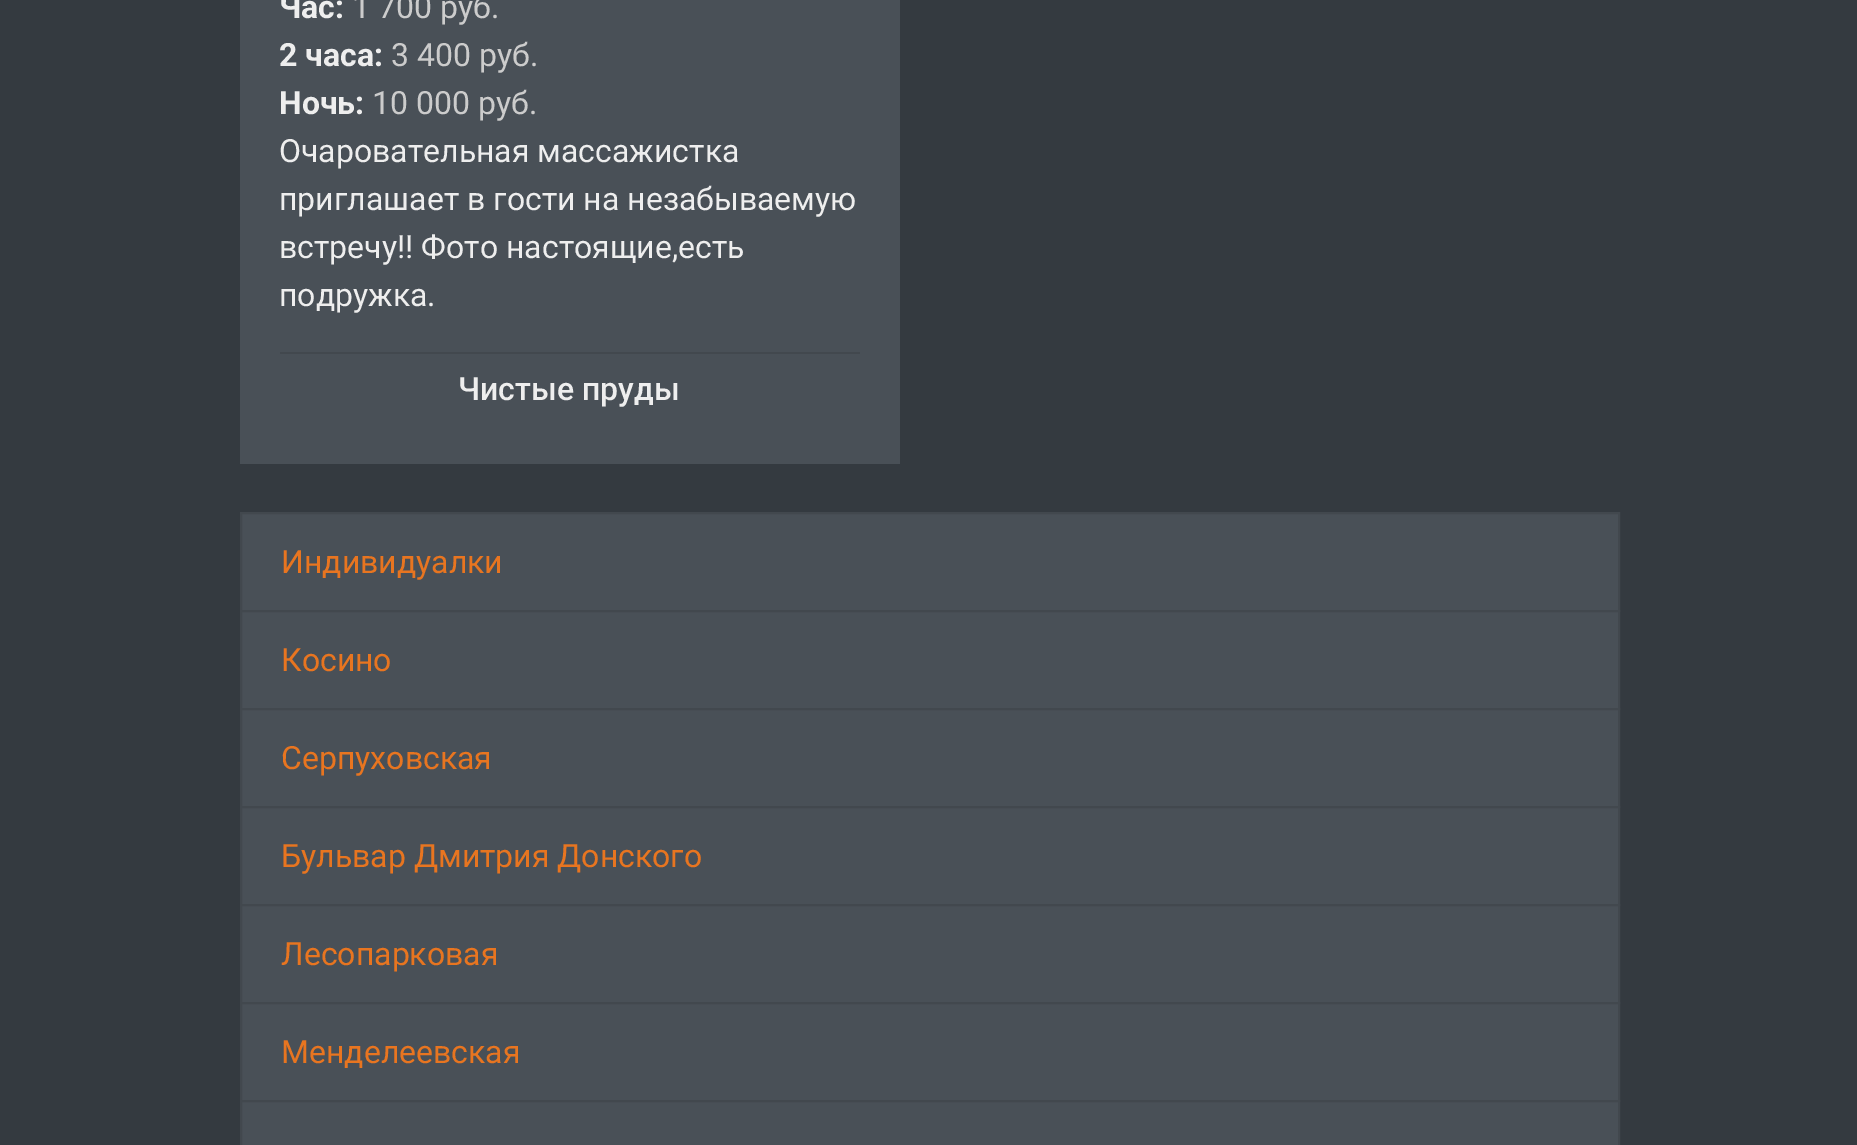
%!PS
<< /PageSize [1857 1145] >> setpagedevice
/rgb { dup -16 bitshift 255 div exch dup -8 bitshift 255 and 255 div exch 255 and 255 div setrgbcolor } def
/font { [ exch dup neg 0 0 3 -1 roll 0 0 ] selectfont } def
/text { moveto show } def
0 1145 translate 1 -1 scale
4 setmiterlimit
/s1 { /Roboto-Bold 32 font 16#EEEEEE rgb } def
/s2 { /Roboto-Regular 32 font 16#CCCCCC rgb } def
/s3 { /Roboto-Regular 32 font 16#EEEEEE rgb } def
/s4 { /Roboto-Medium 32 font 16#EEEEEE rgb } def
/s5 { /Roboto-Regular 32 font 16#E87520 rgb } def
16#343A40 rgb
0 0 1857 1145 rectfill
16#495057 rgb
240 0 660 464 rectfill
s1
(Час:) 279 18 text
s2
(1 700 руб.) 352 18 text
s1
(2 часа:) 279 66 text
s2
(3 400 руб.) 391 66 text
s1
(Ночь:) 279 114 text
s2
(10 000 руб.) 372 114 text
s3
(Очаровательная массажистка) 279 162 text
(приглашает в гости на незабываемую) 279 210 text
(встречу!! Фото настоящие,есть) 279 258 text
(подружка.) 279 306 text
16#42484E rgb
280 352 580 2 rectfill
s4
(Чистые пруды) 458 400 text
16#495057 rgb
241 513 moveto 1619 513 lineto 1619 611 lineto 241 611 lineto closepath gsave fill grestore
16#42484E rgb
2 setlinewidth
stroke
s5
(Индивидуалки) 281 573 text
16#495057 rgb
241 611 moveto 1619 611 lineto 1619 709 lineto 241 709 lineto closepath gsave fill grestore
16#42484E rgb
stroke
s5
(Косино) 281 671 text
16#495057 rgb
241 709 moveto 1619 709 lineto 1619 807 lineto 241 807 lineto closepath gsave fill grestore
16#42484E rgb
stroke
s5
(Серпуховская) 281 769 text
16#495057 rgb
241 807 moveto 1619 807 lineto 1619 905 lineto 241 905 lineto closepath gsave fill grestore
16#42484E rgb
stroke
s5
(Бульвар Дмитрия Донского) 281 867 text
16#495057 rgb
241 905 moveto 1619 905 lineto 1619 1003 lineto 241 1003 lineto closepath gsave fill grestore
16#42484E rgb
stroke
s5
(Лесопарковая) 281 965 text
16#495057 rgb
241 1003 moveto 1619 1003 lineto 1619 1101 lineto 241 1101 lineto closepath gsave fill grestore
16#42484E rgb
stroke
s5
(Менделеевская) 281 1063 text
16#495057 rgb
241 1101 moveto 1619 1101 lineto 1619 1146 lineto 241 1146 lineto closepath gsave fill grestore
16#42484E rgb
stroke
showpage
